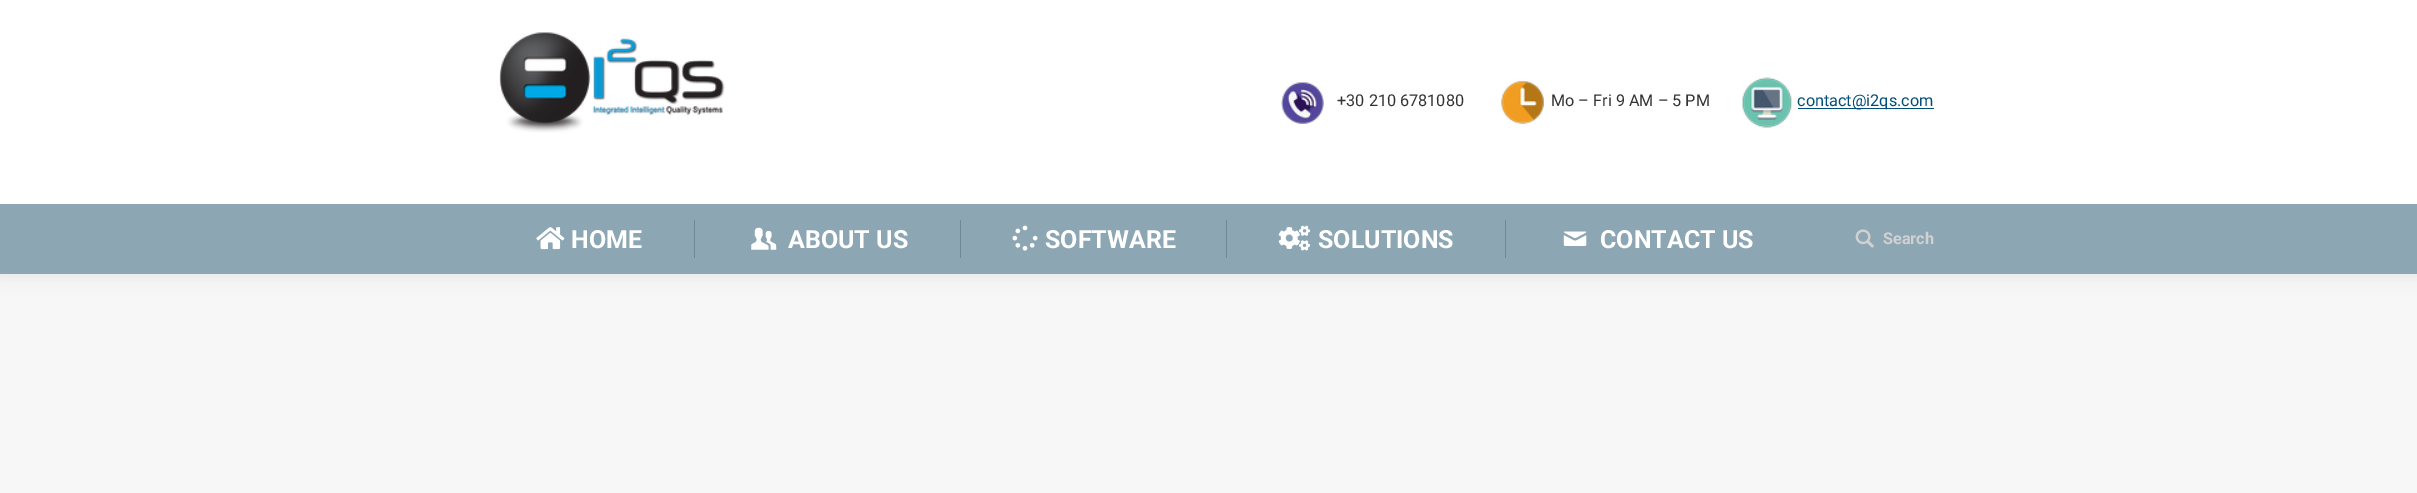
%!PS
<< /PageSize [2417 493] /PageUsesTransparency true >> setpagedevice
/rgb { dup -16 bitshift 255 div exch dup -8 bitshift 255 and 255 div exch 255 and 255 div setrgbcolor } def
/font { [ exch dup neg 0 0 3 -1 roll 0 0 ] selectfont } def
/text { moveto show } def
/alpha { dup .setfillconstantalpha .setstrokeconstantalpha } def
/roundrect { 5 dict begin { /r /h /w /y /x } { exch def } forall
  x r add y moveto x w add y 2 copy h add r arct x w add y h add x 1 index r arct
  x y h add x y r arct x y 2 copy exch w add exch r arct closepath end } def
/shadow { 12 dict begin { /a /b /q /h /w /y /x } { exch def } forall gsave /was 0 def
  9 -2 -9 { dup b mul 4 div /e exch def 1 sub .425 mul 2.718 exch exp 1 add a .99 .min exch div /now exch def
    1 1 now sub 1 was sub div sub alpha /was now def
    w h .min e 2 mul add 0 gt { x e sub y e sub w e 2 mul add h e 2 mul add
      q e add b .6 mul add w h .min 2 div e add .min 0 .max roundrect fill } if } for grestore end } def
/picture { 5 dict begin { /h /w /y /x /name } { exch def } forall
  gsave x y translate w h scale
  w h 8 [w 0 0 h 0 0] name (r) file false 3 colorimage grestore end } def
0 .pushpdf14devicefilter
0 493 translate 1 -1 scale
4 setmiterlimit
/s1 { /Roboto-Regular 16.25 font 16#333333 rgb } def
/s2 { /Roboto-Regular 16.25 font 16#014F78 rgb } def
/s3 { /Roboto-Bold 25 font 16#FFFFFF rgb } def
/s4 { /Roboto-Bold 16.25 font 16#D1D1D1 rgb } def
16#F7F7F7 rgb
0 0 2417 493 rectfill
16#000000 rgb
-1 -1 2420 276 0 9.5 0.07 shadow
16#FFFFFF rgb
0 0 2417 204 rectfill
(pic1.raw) 499 32 226 101 picture
(pic2.raw) 1281 82 43 42 picture
s1
(+30 210 6781080) 1337 106 text
(pic3.raw) 1501 81 43 43 picture
(Mo – Fri 9 AM – 5 PM) 1551 106 text
(pic4.raw) 1742 77 50 51 picture
16#014F78 rgb
1798 108 136 1 rectfill
(contact@i2qs.com) 1797 106 text
16#8CA6B4 rgb
0 204 2417 70 rectfill
(pic5.raw) 536 227 29 23 picture
s3
(HOME) 571 248 text
16#718996 rgb
694 220 1 38 rectfill
(pic6.raw) 751 227 26 23 picture
s3
(ABOUT US) 788 248 text
16#718996 rgb
960 220 1 38 rectfill
(pic7.raw) 1012 225 26 26 picture
s3
(SOFTWARE) 1045 248 text
16#718996 rgb
1226 220 1 38 rectfill
(pic8.raw) 1278 225 32 26 picture
s3
(SOLUTIONS) 1318 248 text
16#718996 rgb
1505 220 1 38 rectfill
(pic9.raw) 1563 231 24 15 picture
s3
(CONTACT US) 1600 248 text
(pic10.raw) 1855 229 19 19 picture
s4
(Search) 1883 244 text
.poppdf14devicefilter showpage
